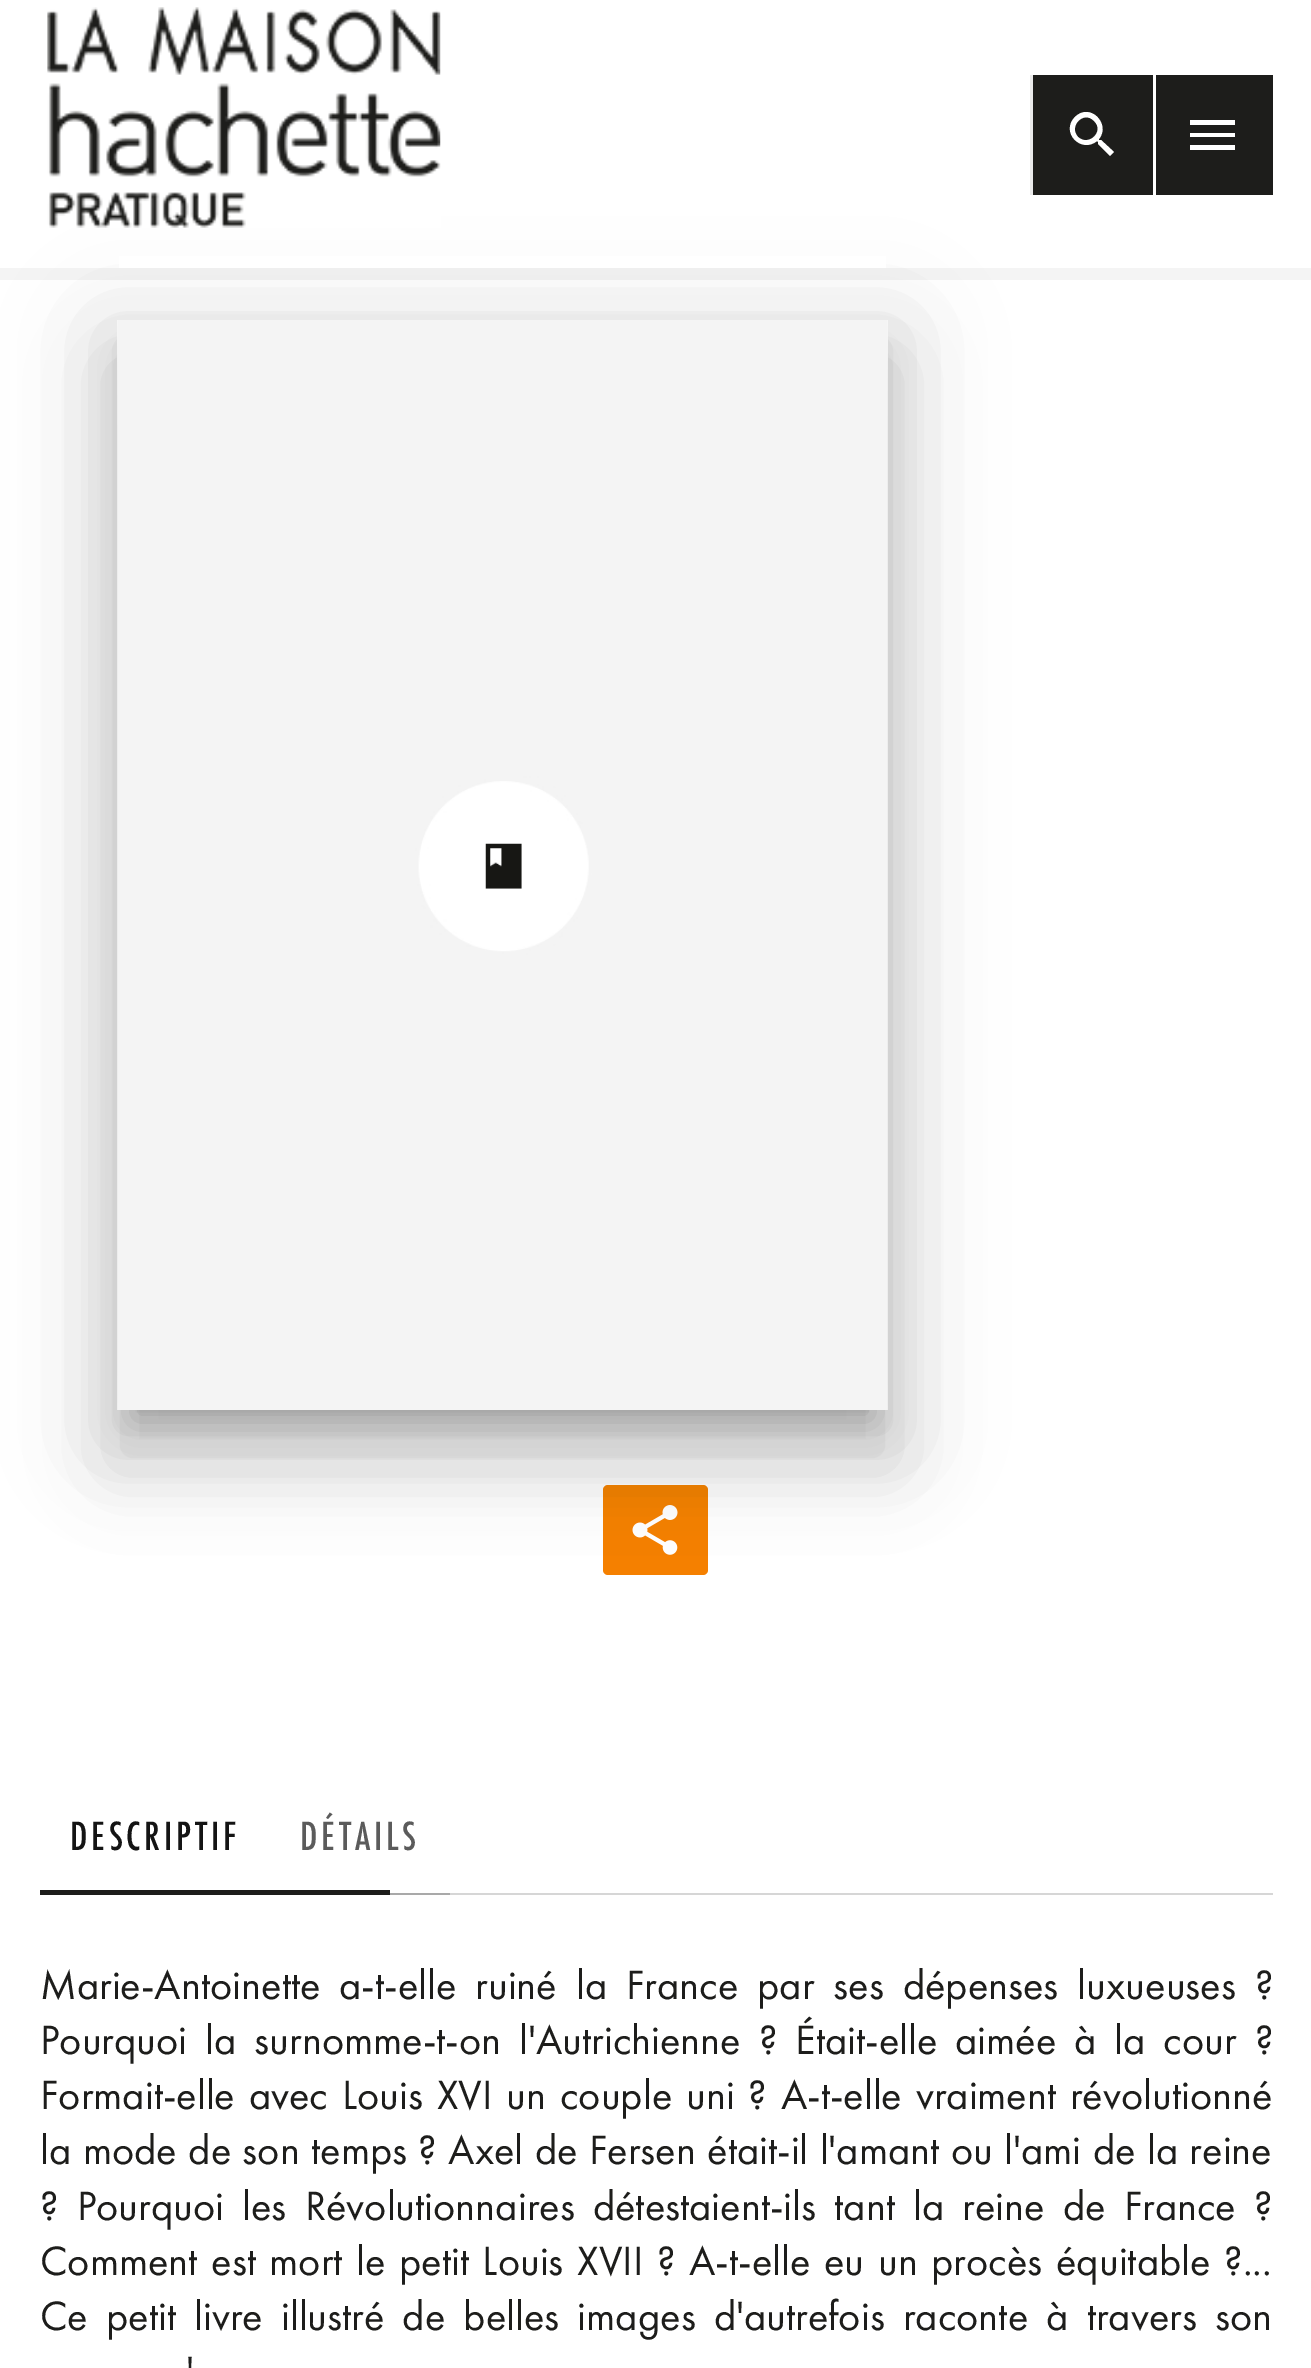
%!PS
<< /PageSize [1311 2368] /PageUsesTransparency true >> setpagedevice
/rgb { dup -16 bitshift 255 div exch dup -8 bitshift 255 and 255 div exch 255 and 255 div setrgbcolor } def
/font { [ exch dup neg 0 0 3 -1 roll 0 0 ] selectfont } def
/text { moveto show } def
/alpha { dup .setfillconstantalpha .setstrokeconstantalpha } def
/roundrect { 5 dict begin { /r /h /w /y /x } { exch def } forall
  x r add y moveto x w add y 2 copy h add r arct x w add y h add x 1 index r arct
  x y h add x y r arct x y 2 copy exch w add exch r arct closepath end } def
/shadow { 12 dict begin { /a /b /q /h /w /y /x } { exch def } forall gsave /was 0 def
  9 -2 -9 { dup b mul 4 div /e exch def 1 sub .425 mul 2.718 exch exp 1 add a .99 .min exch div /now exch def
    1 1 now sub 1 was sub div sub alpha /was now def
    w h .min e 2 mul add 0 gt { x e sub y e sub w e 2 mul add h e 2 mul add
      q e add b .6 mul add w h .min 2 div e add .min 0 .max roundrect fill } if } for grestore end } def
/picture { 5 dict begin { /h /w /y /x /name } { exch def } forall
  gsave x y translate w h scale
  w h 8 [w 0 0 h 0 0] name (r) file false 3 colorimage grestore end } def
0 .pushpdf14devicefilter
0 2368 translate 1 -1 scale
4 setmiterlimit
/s1 { /FuturaPT-Regular 42.5 font 16#1D1D1B rgb } def
16#FFFFFF rgb
0 0 1311 2368 rectfill
16#F4F4F4 rgb
0 268 1311 12 rectfill
16#F58000 rgb
603 1485 105 90 5 roundrect fill
(pic3.raw) 632 1505 46 50 picture
16#000000 rgb
100 323 805 1125 0 47.5 0.12 shadow
110 363 785 1105 0 39 0.14 shadow
16#FFFFFF rgb
119 256 767 12 rectfill
(pic1.raw) 47 7 394 221 picture
16#EBEBEB rgb
1030 75 3 120 rectfill
16#1D1D1B rgb
1033 75 240 120 rectfill
16#FFFFFF rgb
1078 137 moveto 1089 147 1105 131 1094 121 curveto 1084 110 1068 126 1078 137 curveto closepath 1101 140 moveto 1114 152 lineto 1110 156 lineto 1098 144 lineto 1098 142 lineto 1097 141 lineto 1081 154 1060 132 1075 117 curveto 1090 102 1111 124 1099 139 curveto 1099 140 lineto closepath fill
1153 75 3 120 rectfill
1190 120 moveto 1235 120 lineto 1235 125 lineto 1190 125 lineto closepath 1190 137 moveto 1190 133 lineto 1235 133 lineto 1235 137 lineto closepath 1190 150 moveto 1190 145 lineto 1235 145 lineto 1235 150 lineto closepath fill
16#000000 rgb
133 360 740 1060 0 16 0.2 shadow
(pic2.raw) 117 320 771 1090 picture
/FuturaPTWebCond-Medium 42.5 font
16#141414 rgb
70 1850 moveto 3.75 0 (DESCRIPTIF) ashow
16#5B5B5B rgb
300 1850 moveto 3.75 0 (DÉTAILS) ashow
16#A9A9A9 rgb
390 1893 60 2 rectfill
16#1D1D1B rgb
40 1890 350 5 rectfill
16#D6D6D6 rgb
450 1893 823 2 rectfill
/FuturaPT-Regular 42.5 font
16#1D1D1B rgb
40 1999 moveto 9 0 32 (Marie-Antoinette a-t-elle ruiné la France par ses dépenses luxueuses ?) widthshow
40 2054 moveto 8 0 32 (Pourquoi la surnomme-t-on l'Autrichienne ? Était-elle aimée à la cour ?) widthshow
40 2109 moveto 3.9 0 32 (Formait-elle avec Louis XVI un couple uni ? A-t-elle vraiment révolutionné) widthshow
40 2164 moveto 1.5 0 32 (la mode de son temps ? Axel de Fersen était-il l'amant ou l'ami de la reine) widthshow
40 2220 moveto 8.25 0 32 (? Pourquoi les Révolutionnaires détestaient-ils tant la reine de France ?) widthshow
40 2275 moveto 3.75 0 32 (Comment est mort le petit Louis XVII ? A-t-elle eu un procès équitable ?...) widthshow
40 2330 moveto 8.25 0 32 (Ce petit livre illustré de belles images d'autrefois raconte à travers son) widthshow
(') 186 2385 text
.poppdf14devicefilter showpage
